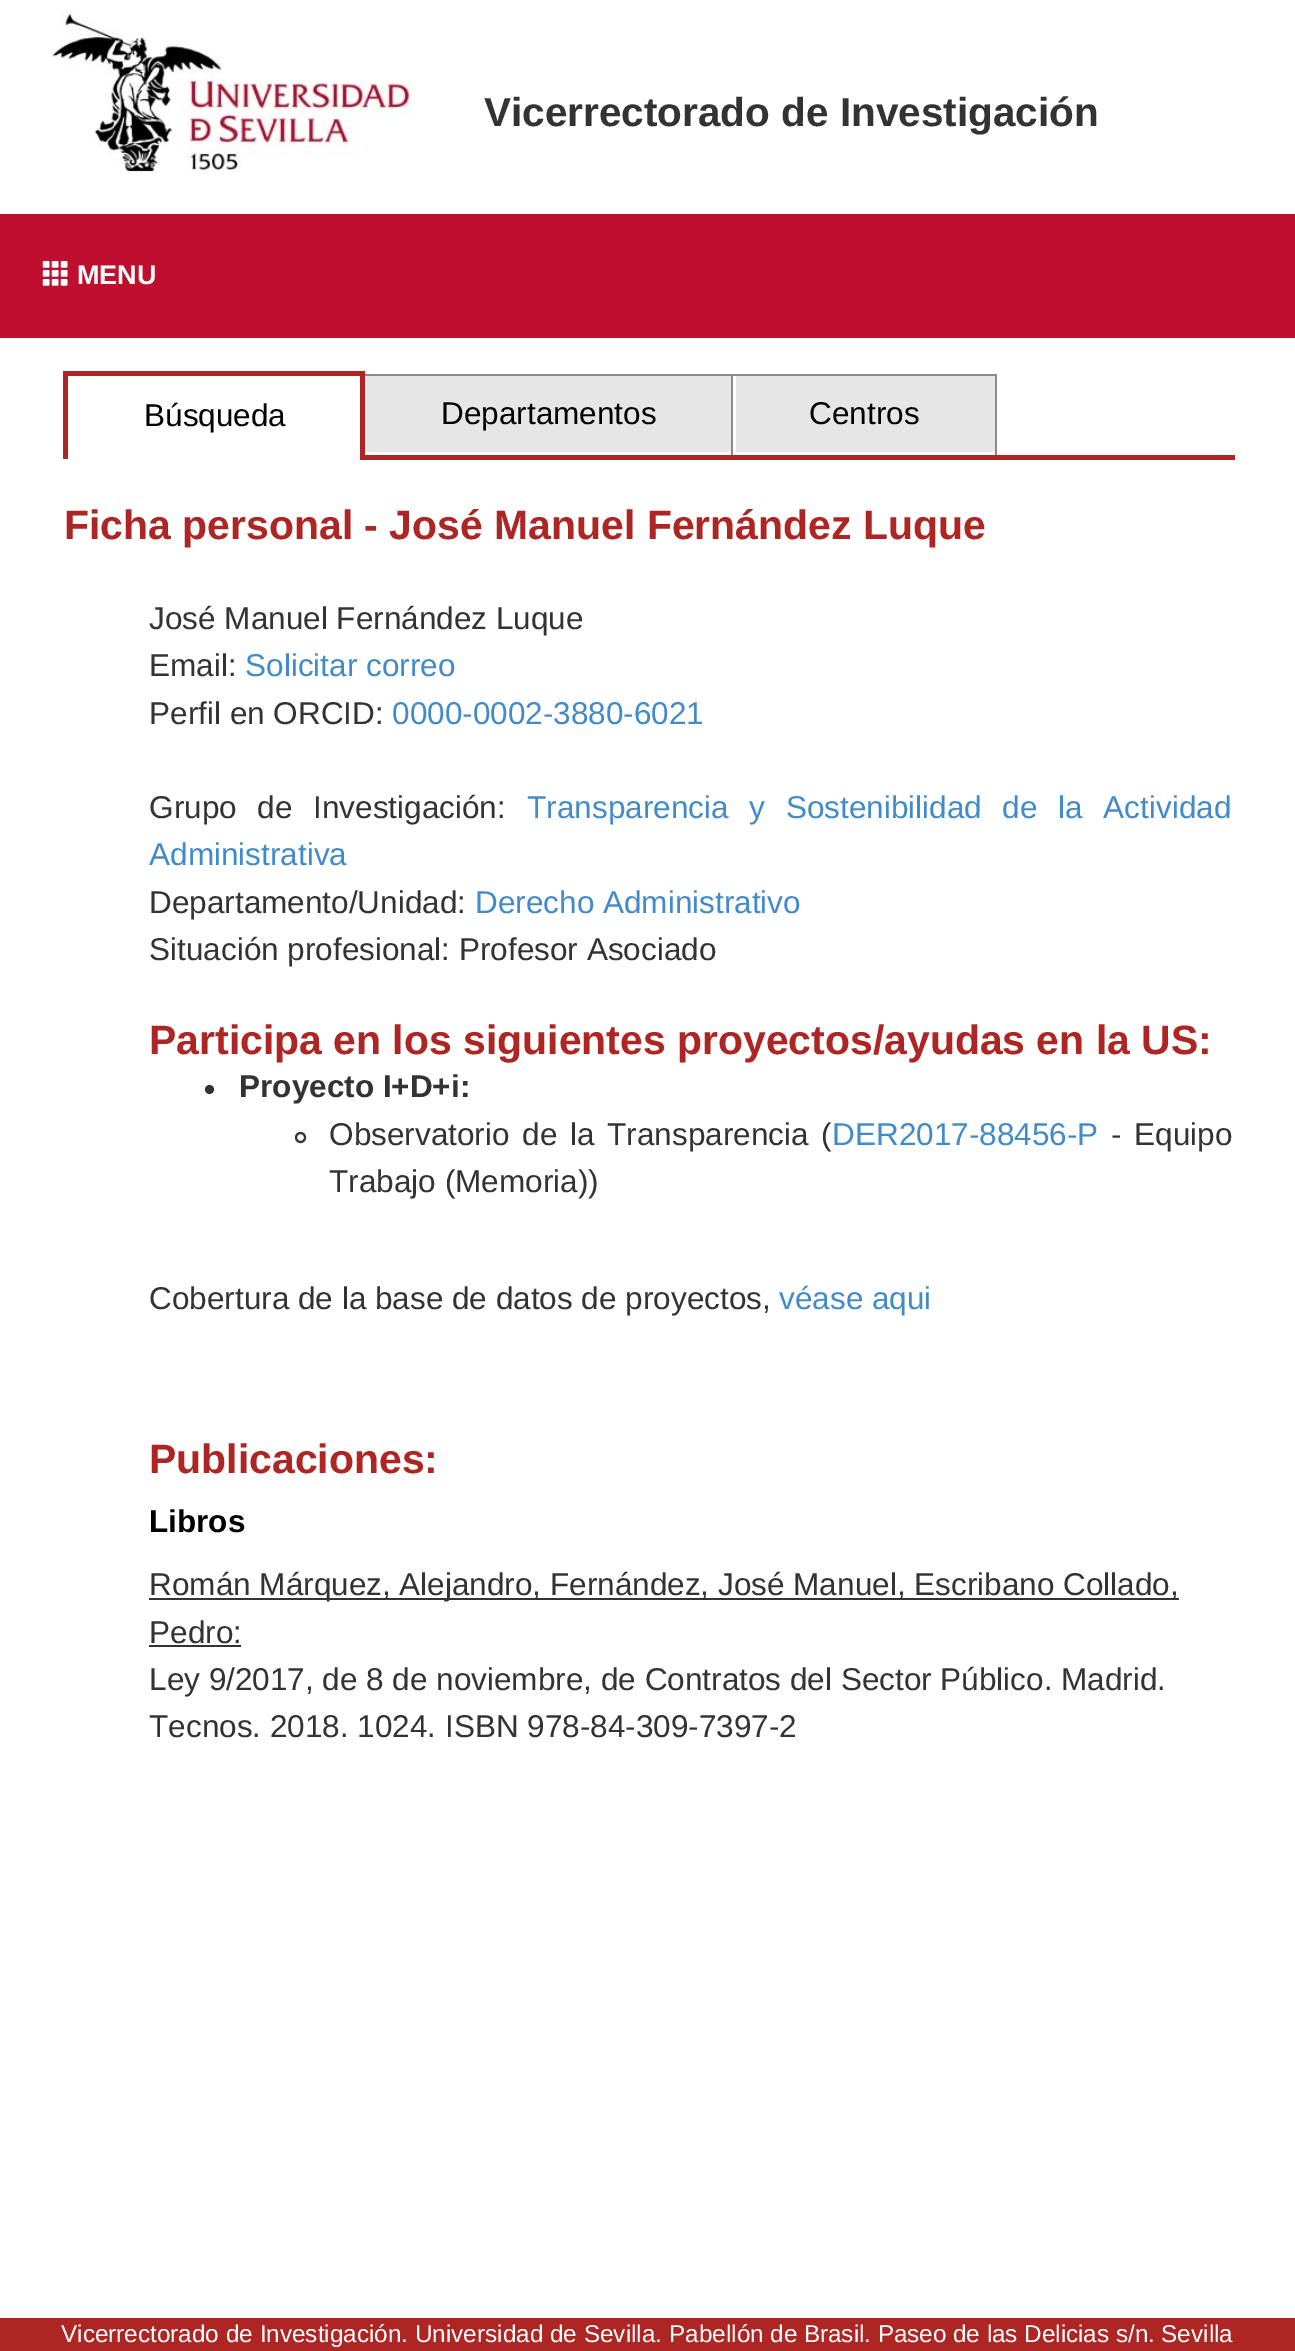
%!PS
<< /PageSize [1295 2351] >> setpagedevice
/rgb { dup -16 bitshift 255 div exch dup -8 bitshift 255 and 255 div exch 255 and 255 div setrgbcolor } def
/font { [ exch dup neg 0 0 3 -1 roll 0 0 ] selectfont } def
/text { moveto show } def
/circle { newpath 0 360 arc closepath } def
/picture { 5 dict begin { /h /w /y /x /name } { exch def } forall
  gsave x y translate w h scale
  w h 8 [w 0 0 h 0 0] name (r) file false 3 colorimage grestore end } def
0 2351 translate 1 -1 scale
4 setmiterlimit
/s1 { /LiberationSans-Bold 40.5 font 16#333333 rgb } def
/s2 { /LiberationSans-Bold 27 font 16#FFFFFF rgb } def
/s3 { /LiberationSans-Regular 31.5 font 16#000000 rgb } def
/s4 { /LiberationSans-Bold 40.95 font 16#AD2624 rgb } def
/s5 { /LiberationSans-Regular 31.5 font 16#333333 rgb } def
/s6 { /LiberationSans-Regular 31.5 font 16#428BCA rgb } def
/s7 { /LiberationSans-Bold 31.5 font 16#333333 rgb } def
/s8 { /LiberationSans-Bold 31.5 font 16#000000 rgb } def
/s9 { /LiberationSans-Regular 24.3 font 16#FFFFFF rgb } def
16#FFFFFF rgb
0 0 1295 2351 rectfill
(pic1.raw) 52 11 360 162 picture
s1
(Vicerrectorado de Investigación) 484 126 text
16#BE0F2E rgb
0 214 1295 124 rectfill
(pic2.raw) 42 261 26 25 picture
s2
(MENU) 77 284 text
16#8D8A8A rgb
995 374 2 83 rectfill
731 374 266 2 rectfill
731 374 2 83 rectfill
362 374 372 2 rectfill
16#AD2624 rgb
63 371 302 5 rectfill
360 455 875 5 rectfill
360 371 5 88 rectfill
63 371 5 88 rectfill
s3
(Búsqueda) 144 426 text
16#E6E6E6 rgb
365 376 366 76 rectfill
s3
(Departamentos) 441 424 text
16#E6E6E6 rgb
736 376 259 76 rectfill
s3
(Centros) 809 424 text
s4
(Ficha personal - José Manuel Fernández Luque) 64 539 text
s5
(José Manuel Fernández Luque) 149 629 text
(Email:) 149 676 text
s6
(Solicitar correo) 245 676 text
s5
(Perfil en ORCID:) 149 724 text
s6
(0000-0002-3880-6021) 392 724 text
16#333333 rgb
149 818 moveto 12 0 32 (Grupo de Investigación:) widthshow
16#428BCA rgb
527 818 moveto 12 0 32 (Transparencia y Sostenibilidad de la Actividad) widthshow
(Administrativa) 149 865 text
s5
(Departamento/Unidad:) 149 913 text
s6
(Derecho Administrativo) 475 913 text
s5
(Situación profesional: Profesor Asociado) 149 960 text
s4
(Participa en los siguientes proyectos/ayudas en la US:) 149 1054 text
16#333333 rgb
209.5 1089.5 4.5 circle fill
s7
(Proyecto I+D+i:) 239 1097 text
2 setlinewidth
300.5 1137.5 4.5 circle stroke
/LiberationSans-Regular 31.5 font
329 1145 moveto 4 0 32 (Observatorio de la Transparencia \() widthshow
s6
(DER2017-88456-P) 832 1145 text
16#333333 rgb
1111 1145 moveto 4 0 32 (- Equipo) widthshow
(Trabajo \(Memoria\)\)) 329 1192 text
(Cobertura de la base de datos de proyectos,) 149 1309 text
s6
(véase aqui) 779 1309 text
s4
(Publicaciones:) 149 1473 text
s8
(Libros) 149 1532 text
16#333333 rgb
149 1598 1030 2 rectfill
s5
(Román Márquez, Alejandro, Fernández, José Manuel, Escribano Collado,) 149 1595 text
(Pedro:) 149 1643 text
149 1645 92 2 rectfill
(Ley 9/2017, de 8 de noviembre, de Contratos del Sector Público. Madrid.) 149 1690 text
(Tecnos. 2018. 1024. ISBN 978-84-309-7397-2) 149 1737 text
16#AD2624 rgb
0 2318 1295 33 rectfill
s9
(Vicerrectorado de Investigación. Universidad de Sevilla.) 61 2342 text
669 2342 moveto -0.25 0 32 (Pabellón de Brasil. Paseo de las Delicias s/n. Sevilla) widthshow
showpage
